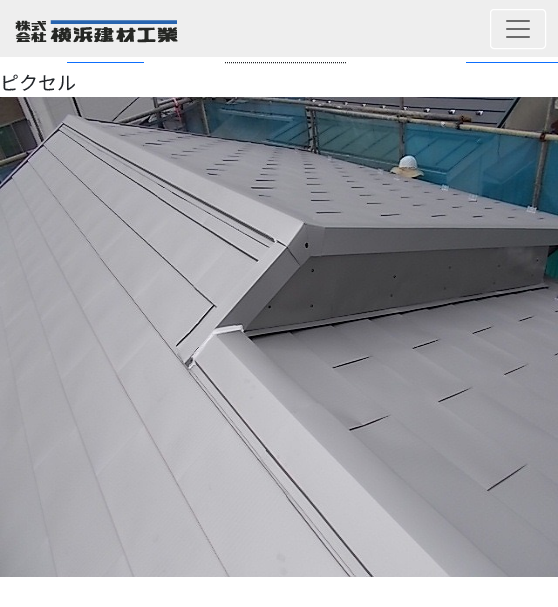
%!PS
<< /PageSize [558 607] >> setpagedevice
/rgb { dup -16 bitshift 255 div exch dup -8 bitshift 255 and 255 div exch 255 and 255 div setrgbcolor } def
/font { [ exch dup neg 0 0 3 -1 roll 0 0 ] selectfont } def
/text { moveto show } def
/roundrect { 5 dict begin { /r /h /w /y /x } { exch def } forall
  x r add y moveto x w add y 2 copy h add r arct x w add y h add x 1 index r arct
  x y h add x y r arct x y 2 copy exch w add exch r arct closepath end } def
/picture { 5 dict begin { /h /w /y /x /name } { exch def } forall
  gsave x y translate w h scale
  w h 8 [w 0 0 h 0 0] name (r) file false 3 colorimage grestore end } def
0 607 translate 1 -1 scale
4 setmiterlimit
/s1 { /NotoSansJP-Regular 19 font 16#212529 rgb } def
16#FFFFFF rgb
0 0 558 607 rectfill
16#EEEEEE rgb
0 0 558 57 rectfill
(pic1.raw) 15 20 163 23 picture
16#FFFFFF rgb
490.5 9.5 55 39 3.5 roundrect stroke
(pic2.raw) 506 20 24 18 picture
16#0D6EFD rgb
67 62 77 1 rectfill
16#212529 rgb
[1 1] 0 setdash
225 62.5 moveto 346.5 62.5 lineto stroke
16#0D6EFD rgb
466 62 92 1 rectfill
s1
(ピクセル) 0 90 text
(pic3.raw) 0 97 558 480 picture
showpage
